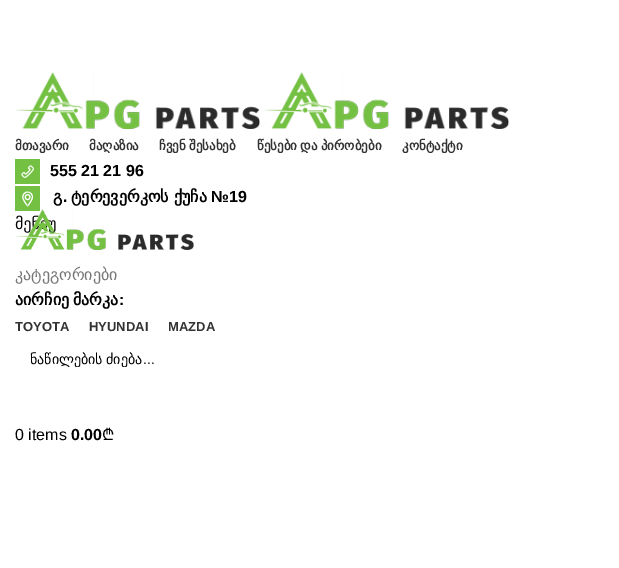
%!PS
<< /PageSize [619 568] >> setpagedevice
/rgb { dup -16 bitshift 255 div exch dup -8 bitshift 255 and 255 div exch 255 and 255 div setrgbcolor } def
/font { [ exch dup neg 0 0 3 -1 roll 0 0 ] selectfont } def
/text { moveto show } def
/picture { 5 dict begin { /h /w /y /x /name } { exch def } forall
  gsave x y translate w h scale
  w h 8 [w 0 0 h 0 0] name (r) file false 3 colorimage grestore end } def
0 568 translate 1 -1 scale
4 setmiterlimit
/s1 { /DejaVuSans-Bold 13 font 16#333333 rgb } def
/s2 { /LiberationSans-Bold 16 font 16#000000 rgb } def
/s3 { /DejaVuSans-Bold 16 font 16#000000 rgb } def
/s4 { /DejaVuSans-Regular 16 font 16#000000 rgb } def
/s5 { /DejaVuSans-Regular 16 font 16#777777 rgb } def
/s6 { /LiberationSans-Bold 13 font 16#333333 rgb } def
/s7 { /LiberationSans-Regular 14 font 16#000000 rgb } def
/s8 { /LiberationSans-Regular 16 font 16#000000 rgb } def
/s9 { /NotoSans-Regular 16 font 16#000000 rgb } def
16#FFFFFF rgb
0 0 619 568 rectfill
(pic1.raw) 15 72 245 57 picture
(pic1.raw) 264 72 245 57 picture
s1
(მთავარი) 15 150 text
(მაღაზია) 89 150 text
159 150 moveto -1 0 32 (ჩვენ შესახებ) widthshow
257 150 moveto -1 0 32 (წესები და პირობები) widthshow
(კონტაქტი) 402 150 text
(pic2.raw) 15 159 25 25 picture
s2
(555 21 21 96) 50 176 text
(pic3.raw) 15 186 25 25 picture
s3
(გ) 53 202 text
s2
(.) 63 202 text
s3
(ტერევერკოს ქუჩა) 71 202 text
s2
(№19) 211 202 text
s4
(მე) 15 229 text
(pic4.raw) 15 209 179 41 picture
s5
(კატეგორიები) 15 280 text
/DejaVuSans-Bold 16 font
16#000000 rgb
15 305 moveto -1 0 32 (აირჩიე მარკა) widthshow
s2
(:) 119 305 text
s6
(TOYOTA) 15 331 text
(HYUNDAI) 89 331 text
(MAZDA) 168 331 text
gsave
30 351 559 16 rectclip
/DejaVuSans-Regular 14 font
16#000000 rgb
30 364 moveto -1 0 32 (ნაწილების ძიება) widthshow
grestore
s7
(...) 143 364 text
s8
(0 items) 15 440 text
s2
(0.00) 71 440 text
s9
(₾) 102 440 text
showpage
